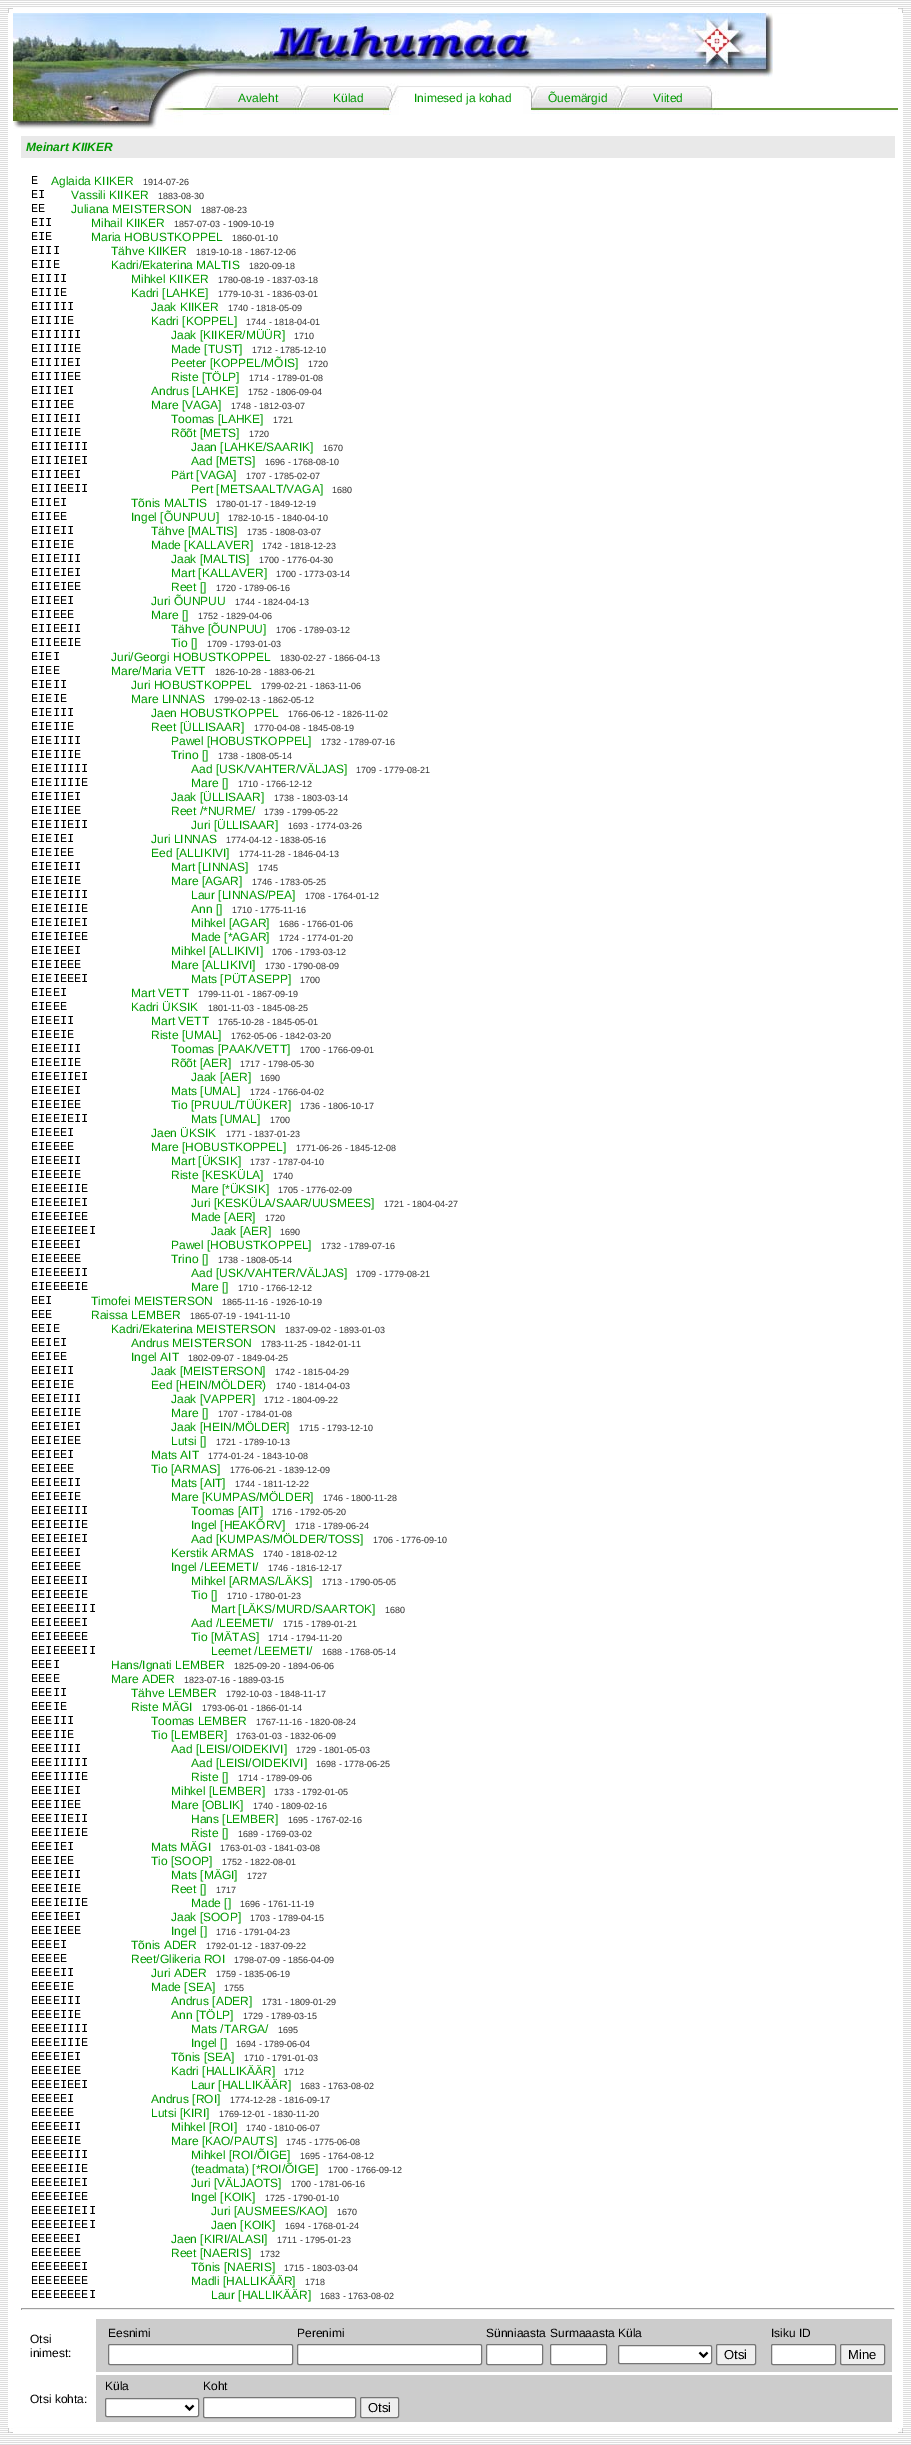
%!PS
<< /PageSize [911 2445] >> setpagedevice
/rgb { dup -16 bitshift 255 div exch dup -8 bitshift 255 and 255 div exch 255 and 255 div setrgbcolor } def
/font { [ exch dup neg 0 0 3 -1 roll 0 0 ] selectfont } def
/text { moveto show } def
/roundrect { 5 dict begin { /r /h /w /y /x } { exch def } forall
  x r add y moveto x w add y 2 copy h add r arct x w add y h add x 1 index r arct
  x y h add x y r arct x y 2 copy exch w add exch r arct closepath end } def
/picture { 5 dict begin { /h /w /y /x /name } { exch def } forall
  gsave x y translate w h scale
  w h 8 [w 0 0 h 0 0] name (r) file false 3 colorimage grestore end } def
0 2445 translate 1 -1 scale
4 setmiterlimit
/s1 { /LiberationSans-Regular 12 font 16#009900 rgb } def
/s2 { /LiberationSans-BoldItalic 12 font 16#009900 rgb } def
/s3 { /LiberationMono-Regular 12 font 16#000000 rgb } def
/s4 { /LiberationSans-Regular 9 font 16#333333 rgb } def
/s5 { /LiberationSans-Regular 12 font 16#000000 rgb } def
/s6 { /LiberationSans-Regular 13 font 16#000000 rgb } def
16#FFFFFF rgb
0 0 911 2445 rectfill
(pic1.raw) 0 0 911 2445 picture
(pic2.raw) 8 8 5 5 picture
13 8 885 5 rectfill
(pic3.raw) 898 8 5 5 picture
8 13 5 2415 rectfill
13 14 885 2413 rectfill
(pic4.raw) 13 13 170 116 picture
(pic5.raw) 183 13 590 69 picture
(pic6.raw) 203 83 20 32 picture
(pic7.raw) 223 86 70 28 picture
s1
(Avaleht) 238 102 text
(pic8.raw) 293 84 20 30 picture
(pic7.raw) 313 86 70 28 picture
(Külad) 333 102 text
(pic9.raw) 383 83 20 32 picture
16#E4E4E4 rgb
403 86 120 1 rectfill
s1
(Inimesed ja kohad) 414 102 text
(pic10.raw) 523 83 20 31 picture
(pic7.raw) 543 86 70 28 picture
(Õuemärgid) 548 102 text
(pic8.raw) 613 84 20 30 picture
(pic7.raw) 633 86 70 28 picture
(Viited) 653 102 text
(pic11.raw) 703 85 20 30 picture
(pic12.raw) 183 108 20 4 picture
(pic13.raw) 723 108 95 4 picture
(pic14.raw) 818 108 80 4 picture
16#E9E9E9 rgb
21 136 874 22 rectfill
s2
(Meinart KIIKER) 26 151 text
s3
(E) 31 184 text
s1
(Aglaida KIIKER) 51 185 text
s4
(1914-07-26) 143 185 text
s3
(EI) 31 198 text
s1
(Vassili KIIKER) 71 199 text
s4
(1883-08-30) 158 199 text
s3
(EE) 31 212 text
s1
(Juliana MEISTERSON) 71 213 text
s4
(1887-08-23) 201 213 text
s3
(EII) 31 226 text
s1
(Mihail KIIKER) 91 227 text
s4
(1857-07-03 - 1909-10-19) 174 227 text
s3
(EIE) 31 240 text
s1
(Maria HOBUSTKOPPEL) 91 241 text
s4
(1860-01-10) 232 241 text
s3
(EIII) 31 254 text
s1
(Tähve KIIKER) 111 255 text
s4
(1819-10-18 - 1867-12-06) 196 255 text
s3
(EIIE) 31 268 text
s1
(Kadri/Ekaterina MALTIS) 111 269 text
s4
(1820-09-18) 249 269 text
s3
(EIIII) 31 282 text
s1
(Mihkel KIIKER) 131 283 text
s4
(1780-08-19 - 1837-03-18) 218 283 text
s3
(EIIIE) 31 296 text
s1
(Kadri [LAHKE]) 131 297 text
s4
(1779-10-31 - 1836-03-01) 218 297 text
s3
(EIIIII) 31 310 text
s1
(Jaak KIIKER) 151 311 text
s4
(1740 - 1818-05-09) 228 311 text
s3
(EIIIIE) 31 324 text
s1
(Kadri [KOPPEL]) 151 325 text
s4
(1744 - 1818-04-01) 246 325 text
s3
(EIIIIII) 31 338 text
s1
(Jaak [KIIKER/MÜÜR]) 171 339 text
s4
(1710) 294 339 text
s3
(EIIIIIE) 31 352 text
s1
(Made [TUST]) 171 353 text
s4
(1712 - 1785-12-10) 252 353 text
s3
(EIIIIEI) 31 366 text
s1
(Peeter [KOPPEL/MÕIS]) 171 367 text
s4
(1720) 308 367 text
s3
(EIIIIEE) 31 380 text
s1
(Riste [TÖLP]) 171 381 text
s4
(1714 - 1789-01-08) 249 381 text
s3
(EIIIEI) 31 394 text
s1
(Andrus [LAHKE]) 151 395 text
s4
(1752 - 1806-09-04) 248 395 text
s3
(EIIIEE) 31 408 text
s1
(Mare [VAGA]) 151 409 text
s4
(1748 - 1812-03-07) 231 409 text
s3
(EIIIEII) 31 422 text
s1
(Toomas [LAHKE]) 171 423 text
s4
(1721) 273 423 text
s3
(EIIIEIE) 31 436 text
s1
(Rõõt [METS]) 171 437 text
s4
(1720) 249 437 text
s3
(EIIIEIII) 31 450 text
s1
(Jaan [LAHKE/SAARIK]) 191 451 text
s4
(1670) 323 451 text
s3
(EIIIEIEI) 31 464 text
s1
(Aad [METS]) 191 465 text
s4
(1696 - 1768-08-10) 265 465 text
s3
(EIIIEEI) 31 478 text
s1
(Pärt [VAGA]) 171 479 text
s4
(1707 - 1785-02-07) 246 479 text
s3
(EIIIEEII) 31 492 text
s1
(Pert [METSAALT/VAGA]) 191 493 text
s4
(1680) 332 493 text
s3
(EIIEI) 31 506 text
s1
(Tõnis MALTIS) 131 507 text
s4
(1780-01-17 - 1849-12-19) 216 507 text
s3
(EIIEE) 31 520 text
s1
(Ingel [ÕUNPUU]) 131 521 text
s4
(1782-10-15 - 1840-04-10) 228 521 text
s3
(EIIEII) 31 534 text
s1
(Tähve [MALTIS]) 151 535 text
s4
(1735 - 1808-03-07) 247 535 text
s3
(EIIEIE) 31 548 text
s1
(Made [KALLAVER]) 151 549 text
s4
(1742 - 1818-12-23) 262 549 text
s3
(EIIEIII) 31 562 text
s1
(Jaak [MALTIS]) 171 563 text
s4
(1700 - 1776-04-30) 259 563 text
s3
(EIIEIEI) 31 576 text
s1
(Mart [KALLAVER]) 171 577 text
s4
(1700 - 1773-03-14) 276 577 text
s3
(EIIEIEE) 31 590 text
s1
(Reet []) 171 591 text
s4
(1720 - 1789-06-16) 216 591 text
s3
(EIIEEI) 31 604 text
s1
(Juri ÕUNPUU) 151 605 text
s4
(1744 - 1824-04-13) 235 605 text
s3
(EIIEEE) 31 618 text
s1
(Mare []) 151 619 text
s4
(1752 - 1829-04-06) 198 619 text
s3
(EIIEEII) 31 632 text
s1
(Tähve [ÕUNPUU]) 171 633 text
s4
(1706 - 1789-03-12) 276 633 text
s3
(EIIEEIE) 31 646 text
s1
(Tio []) 171 647 text
s4
(1709 - 1793-01-03) 207 647 text
s3
(EIEI) 31 660 text
s1
(Juri/Georgi HOBUSTKOPPEL) 111 661 text
s4
(1830-02-27 - 1866-04-13) 280 661 text
s3
(EIEE) 31 674 text
s1
(Mare/Maria VETT) 111 675 text
s4
(1826-10-28 - 1883-06-21) 215 675 text
s3
(EIEII) 31 688 text
s1
(Juri HOBUSTKOPPEL) 131 689 text
s4
(1799-02-21 - 1863-11-06) 261 689 text
s3
(EIEIE) 31 702 text
s1
(Mare LINNAS) 131 703 text
s4
(1799-02-13 - 1862-05-12) 214 703 text
s3
(EIEIII) 31 716 text
s1
(Jaen HOBUSTKOPPEL) 151 717 text
s4
(1766-06-12 - 1826-11-02) 288 717 text
s3
(EIEIIE) 31 730 text
s1
(Reet [ÜLLISAAR]) 151 731 text
s4
(1770-04-08 - 1845-08-19) 254 731 text
s3
(EIEIIII) 31 744 text
s1
(Pawel [HOBUSTKOPPEL]) 171 745 text
s4
(1732 - 1789-07-16) 321 745 text
s3
(EIEIIIE) 31 758 text
s1
(Trino []) 171 759 text
s4
(1738 - 1808-05-14) 218 759 text
s3
(EIEIIIII) 31 772 text
s1
(Aad [USK/VAHTER/VÄLJAS]) 191 773 text
s4
(1709 - 1779-08-21) 356 773 text
s3
(EIEIIIIE) 31 786 text
s1
(Mare []) 191 787 text
s4
(1710 - 1766-12-12) 238 787 text
s3
(EIEIIEI) 31 800 text
s1
(Jaak [ÜLLISAAR]) 171 801 text
s4
(1738 - 1803-03-14) 274 801 text
s3
(EIEIIEE) 31 814 text
s1
(Reet /*NURME/) 171 815 text
s4
(1739 - 1799-05-22) 264 815 text
s3
(EIEIIEII) 31 828 text
s1
(Juri [ÜLLISAAR]) 191 829 text
s4
(1693 - 1774-03-26) 288 829 text
s3
(EIEIEI) 31 842 text
s1
(Juri LINNAS) 151 843 text
s4
(1774-04-12 - 1838-05-16) 226 843 text
s3
(EIEIEE) 31 856 text
s1
(Eed [ALLIKIVI]) 151 857 text
s4
(1774-11-28 - 1846-04-13) 239 857 text
s3
(EIEIEII) 31 870 text
s1
(Mart [LINNAS]) 171 871 text
s4
(1745) 258 871 text
s3
(EIEIEIE) 31 884 text
s1
(Mare [AGAR]) 171 885 text
s4
(1746 - 1783-05-25) 252 885 text
s3
(EIEIEIII) 31 898 text
s1
(Laur [LINNAS/PEA]) 191 899 text
s4
(1708 - 1764-01-12) 305 899 text
s3
(EIEIEIIE) 31 912 text
s1
(Ann []) 191 913 text
s4
(1710 - 1775-11-16) 232 913 text
s3
(EIEIEIEI) 31 926 text
s1
(Mihkel [AGAR]) 191 927 text
s4
(1686 - 1766-01-06) 279 927 text
s3
(EIEIEIEE) 31 940 text
s1
(Made [*AGAR]) 191 941 text
s4
(1724 - 1774-01-20) 279 941 text
s3
(EIEIEEI) 31 954 text
s1
(Mihkel [ALLIKIVI]) 171 955 text
s4
(1706 - 1793-03-12) 272 955 text
s3
(EIEIEEE) 31 968 text
s1
(Mare [ALLIKIVI]) 171 969 text
s4
(1730 - 1790-08-09) 265 969 text
s3
(EIEIEEEI) 31 982 text
s1
(Mats [PÜTASEPP]) 191 983 text
s4
(1700) 300 983 text
s3
(EIEEI) 31 996 text
s1
(Mart VETT) 131 997 text
s4
(1799-11-01 - 1867-09-19) 198 997 text
s3
(EIEEE) 31 1010 text
s1
(Kadri ÜKSIK) 131 1011 text
s4
(1801-11-03 - 1845-08-25) 208 1011 text
s3
(EIEEII) 31 1024 text
s1
(Mart VETT) 151 1025 text
s4
(1765-10-28 - 1845-05-01) 218 1025 text
s3
(EIEEIE) 31 1038 text
s1
(Riste [UMAL]) 151 1039 text
s4
(1762-05-06 - 1842-03-20) 231 1039 text
s3
(EIEEIII) 31 1052 text
s1
(Toomas [PAAK/VETT]) 171 1053 text
s4
(1700 - 1766-09-01) 300 1053 text
s3
(EIEEIIE) 31 1066 text
s1
(Rõõt [AER]) 171 1067 text
s4
(1717 - 1798-05-30) 240 1067 text
s3
(EIEEIIEI) 31 1080 text
s1
(Jaak [AER]) 191 1081 text
s4
(1690) 260 1081 text
s3
(EIEEIEI) 31 1094 text
s1
(Mats [UMAL]) 171 1095 text
s4
(1724 - 1766-04-02) 250 1095 text
s3
(EIEEIEE) 31 1108 text
s1
(Tio [PRUUL/TÜÜKER]) 171 1109 text
s4
(1736 - 1806-10-17) 300 1109 text
s3
(EIEEIEII) 31 1122 text
s1
(Mats [UMAL]) 191 1123 text
s4
(1700) 270 1123 text
s3
(EIEEEI) 31 1136 text
s1
(Jaen ÜKSIK) 151 1137 text
s4
(1771 - 1837-01-23) 226 1137 text
s3
(EIEEEE) 31 1150 text
s1
(Mare [HOBUSTKOPPEL]) 151 1151 text
s4
(1771-06-26 - 1845-12-08) 296 1151 text
s3
(EIEEEII) 31 1164 text
s1
(Mart [ÜKSIK]) 171 1165 text
s4
(1737 - 1787-04-10) 250 1165 text
s3
(EIEEEIE) 31 1178 text
s1
(Riste [KESKÜLA]) 171 1179 text
s4
(1740) 273 1179 text
s3
(EIEEEIIE) 31 1192 text
s1
(Mare [*ÜKSIK]) 191 1193 text
s4
(1705 - 1776-02-09) 278 1193 text
s3
(EIEEEIEI) 31 1206 text
s1
(Juri [KESKÜLA/SAAR/UUSMEES]) 191 1207 text
s4
(1721 - 1804-04-27) 384 1207 text
s3
(EIEEEIEE) 31 1220 text
s1
(Made [AER]) 191 1221 text
s4
(1720) 265 1221 text
s3
(EIEEEIEEI) 31 1234 text
s1
(Jaak [AER]) 211 1235 text
s4
(1690) 280 1235 text
s3
(EIEEEEI) 31 1248 text
s1
(Pawel [HOBUSTKOPPEL]) 171 1249 text
s4
(1732 - 1789-07-16) 321 1249 text
s3
(EIEEEEE) 31 1262 text
s1
(Trino []) 171 1263 text
s4
(1738 - 1808-05-14) 218 1263 text
s3
(EIEEEEII) 31 1276 text
s1
(Aad [USK/VAHTER/VÄLJAS]) 191 1277 text
s4
(1709 - 1779-08-21) 356 1277 text
s3
(EIEEEEIE) 31 1290 text
s1
(Mare []) 191 1291 text
s4
(1710 - 1766-12-12) 238 1291 text
s3
(EEI) 31 1304 text
s1
(Timofei MEISTERSON) 91 1305 text
s4
(1865-11-16 - 1926-10-19) 222 1305 text
s3
(EEE) 31 1318 text
s1
(Raissa LEMBER) 91 1319 text
s4
(1865-07-19 - 1941-11-10) 190 1319 text
s3
(EEIE) 31 1332 text
s1
(Kadri/Ekaterina MEISTERSON) 111 1333 text
s4
(1837-09-02 - 1893-01-03) 285 1333 text
s3
(EEIEI) 31 1346 text
s1
(Andrus MEISTERSON) 131 1347 text
s4
(1783-11-25 - 1842-01-11) 261 1347 text
s3
(EEIEE) 31 1360 text
s1
(Ingel AIT) 131 1361 text
s4
(1802-09-07 - 1849-04-25) 188 1361 text
s3
(EEIEII) 31 1374 text
s1
(Jaak [MEISTERSON]) 151 1375 text
s4
(1742 - 1815-04-29) 275 1375 text
s3
(EEIEIE) 31 1388 text
s1
(Eed [HEIN/MÖLDER\)) 151 1389 text
s4
(1740 - 1814-04-03) 276 1389 text
s3
(EEIEIII) 31 1402 text
s1
(Jaak [VAPPER]) 171 1403 text
s4
(1712 - 1804-09-22) 264 1403 text
s3
(EEIEIIE) 31 1416 text
s1
(Mare []) 171 1417 text
s4
(1707 - 1784-01-08) 218 1417 text
s3
(EEIEIEI) 31 1430 text
s1
(Jaak [HEIN/MÖLDER]) 171 1431 text
s4
(1715 - 1793-12-10) 299 1431 text
s3
(EEIEIEE) 31 1444 text
s1
(Lutsi []) 171 1445 text
s4
(1721 - 1789-10-13) 216 1445 text
s3
(EEIEEI) 31 1458 text
s1
(Mats AIT) 151 1459 text
s4
(1774-01-24 - 1843-10-08) 208 1459 text
s3
(EEIEEE) 31 1472 text
s1
(Tio [ARMAS]) 151 1473 text
s4
(1776-06-21 - 1839-12-09) 230 1473 text
s3
(EEIEEII) 31 1486 text
s1
(Mats [AIT]) 171 1487 text
s4
(1744 - 1811-12-22) 235 1487 text
s3
(EEIEEIE) 31 1500 text
s1
(Mare [KUMPAS/MÖLDER]) 171 1501 text
s4
(1746 - 1800-11-28) 323 1501 text
s3
(EEIEEIII) 31 1514 text
s1
(Toomas [AIT]) 191 1515 text
s4
(1716 - 1792-05-20) 272 1515 text
s3
(EEIEEIIE) 31 1528 text
s1
(Ingel [HEAKÕRV]) 191 1529 text
s4
(1718 - 1789-06-24) 295 1529 text
s3
(EEIEEIEI) 31 1542 text
s1
(Aad [KUMPAS/MÖLDER/TOSS]) 191 1543 text
s4
(1706 - 1776-09-10) 373 1543 text
s3
(EEIEEEI) 31 1556 text
s1
(Kerstik ARMAS) 171 1557 text
s4
(1740 - 1818-02-12) 263 1557 text
s3
(EEIEEEE) 31 1570 text
s1
(Ingel /LEEMETI/) 171 1571 text
s4
(1746 - 1816-12-17) 268 1571 text
s3
(EEIEEEII) 31 1584 text
s1
(Mihkel [ARMAS/LÄKS]) 191 1585 text
s4
(1713 - 1790-05-05) 322 1585 text
s3
(EEIEEEIE) 31 1598 text
s1
(Tio []) 191 1599 text
s4
(1710 - 1780-01-23) 227 1599 text
s3
(EEIEEEIII) 31 1612 text
s1
(Mart [LÄKS/MURD/SAARTOK]) 211 1613 text
s4
(1680) 385 1613 text
s3
(EEIEEEEI) 31 1626 text
s1
(Aad /LEEMETI/) 191 1627 text
s4
(1715 - 1789-01-21) 283 1627 text
s3
(EEIEEEEE) 31 1640 text
s1
(Tio [MÄTAS]) 191 1641 text
s4
(1714 - 1794-11-20) 268 1641 text
s3
(EEIEEEEII) 31 1654 text
s1
(Leemet /LEEMETI/) 211 1655 text
s4
(1688 - 1768-05-14) 322 1655 text
s3
(EEEI) 31 1668 text
s1
(Hans/Ignati LEMBER) 111 1669 text
s4
(1825-09-20 - 1894-06-06) 234 1669 text
s3
(EEEE) 31 1682 text
s1
(Mare ADER) 111 1683 text
s4
(1823-07-16 - 1889-03-15) 184 1683 text
s3
(EEEII) 31 1696 text
s1
(Tähve LEMBER) 131 1697 text
s4
(1792-10-03 - 1848-11-17) 226 1697 text
s3
(EEEIE) 31 1710 text
s1
(Riste MÄGI) 131 1711 text
s4
(1793-06-01 - 1866-01-14) 202 1711 text
s3
(EEEIII) 31 1724 text
s1
(Toomas LEMBER) 151 1725 text
s4
(1767-11-16 - 1820-08-24) 256 1725 text
s3
(EEEIIE) 31 1738 text
s1
(Tio [LEMBER]) 151 1739 text
s4
(1763-01-03 - 1832-06-09) 236 1739 text
s3
(EEEIIII) 31 1752 text
s1
(Aad [LEISI/OIDEKIVI]) 171 1753 text
s4
(1729 - 1801-05-03) 296 1753 text
s3
(EEEIIIII) 31 1766 text
s1
(Aad [LEISI/OIDEKIVI]) 191 1767 text
s4
(1698 - 1778-06-25) 316 1767 text
s3
(EEEIIIIE) 31 1780 text
s1
(Riste []) 191 1781 text
s4
(1714 - 1789-09-06) 238 1781 text
s3
(EEEIIEI) 31 1794 text
s1
(Mihkel [LEMBER]) 171 1795 text
s4
(1733 - 1792-01-05) 274 1795 text
s3
(EEEIIEE) 31 1808 text
s1
(Mare [OBLIK]) 171 1809 text
s4
(1740 - 1809-02-16) 253 1809 text
s3
(EEEIIEII) 31 1822 text
s1
(Hans [LEMBER]) 191 1823 text
s4
(1695 - 1767-02-16) 288 1823 text
s3
(EEEIIEIE) 31 1836 text
s1
(Riste []) 191 1837 text
s4
(1689 - 1769-03-02) 238 1837 text
s3
(EEEIEI) 31 1850 text
s1
(Mats MÄGI) 151 1851 text
s4
(1763-01-03 - 1841-03-08) 220 1851 text
s3
(EEEIEE) 31 1864 text
s1
(Tio [SOOP]) 151 1865 text
s4
(1752 - 1822-08-01) 222 1865 text
s3
(EEEIEII) 31 1878 text
s1
(Mats [MÄGI]) 171 1879 text
s4
(1727) 247 1879 text
s3
(EEEIEIE) 31 1892 text
s1
(Reet []) 171 1893 text
s4
(1717) 216 1893 text
s3
(EEEIEIIE) 31 1906 text
s1
(Made []) 191 1907 text
s4
(1696 - 1761-11-19) 240 1907 text
s3
(EEEIEEI) 31 1920 text
s1
(Jaak [SOOP]) 171 1921 text
s4
(1703 - 1789-04-15) 250 1921 text
s3
(EEEIEEE) 31 1934 text
s1
(Ingel []) 171 1935 text
s4
(1716 - 1791-04-23) 216 1935 text
s3
(EEEEI) 31 1948 text
s1
(Tõnis ADER) 131 1949 text
s4
(1792-01-12 - 1837-09-22) 206 1949 text
s3
(EEEEE) 31 1962 text
s1
(Reet/Glikeria ROI) 131 1963 text
s4
(1798-07-09 - 1856-04-09) 234 1963 text
s3
(EEEEII) 31 1976 text
s1
(Juri ADER) 151 1977 text
s4
(1759 - 1835-06-19) 216 1977 text
s3
(EEEEIE) 31 1990 text
s1
(Made [SEA]) 151 1991 text
s4
(1755) 224 1991 text
s3
(EEEEIII) 31 2004 text
s1
(Andrus [ADER]) 171 2005 text
s4
(1731 - 1809-01-29) 262 2005 text
s3
(EEEEIIE) 31 2018 text
s1
(Ann [TÖLP]) 171 2019 text
s4
(1729 - 1789-03-15) 243 2019 text
s3
(EEEEIIII) 31 2032 text
s1
(Mats /TARGA/) 191 2033 text
s4
(1695) 278 2033 text
s3
(EEEEIIIE) 31 2046 text
s1
(Ingel []) 191 2047 text
s4
(1694 - 1789-06-04) 236 2047 text
s3
(EEEEIEI) 31 2060 text
s1
(Tõnis [SEA]) 171 2061 text
s4
(1710 - 1791-01-03) 244 2061 text
s3
(EEEEIEE) 31 2074 text
s1
(Kadri [HALLIKÄÄR]) 171 2075 text
s4
(1712) 284 2075 text
s3
(EEEEIEEI) 31 2088 text
s1
(Laur [HALLIKÄÄR]) 191 2089 text
s4
(1683 - 1763-08-02) 300 2089 text
s3
(EEEEEI) 31 2102 text
s1
(Andrus [ROI]) 151 2103 text
s4
(1774-12-28 - 1816-09-17) 230 2103 text
s3
(EEEEEE) 31 2116 text
s1
(Lutsi [KIRI]) 151 2117 text
s4
(1769-12-01 - 1830-11-20) 219 2117 text
s3
(EEEEEII) 31 2130 text
s1
(Mihkel [ROI]) 171 2131 text
s4
(1740 - 1810-06-07) 246 2131 text
s3
(EEEEEIE) 31 2144 text
s1
(Mare [KAO/PAUTS]) 171 2145 text
s4
(1745 - 1775-06-08) 286 2145 text
s3
(EEEEEIII) 31 2158 text
s1
(Mihkel [ROI/ÕIGE]) 191 2159 text
s4
(1695 - 1764-08-12) 300 2159 text
s3
(EEEEEIIE) 31 2172 text
s1
(\(teadmata\) [*ROI/ÕIGE]) 191 2173 text
s4
(1700 - 1766-09-12) 328 2173 text
s3
(EEEEEIEI) 31 2186 text
s1
(Juri [VÄLJAOTS]) 191 2187 text
s4
(1700 - 1781-06-16) 291 2187 text
s3
(EEEEEIEE) 31 2200 text
s1
(Ingel [KOIK]) 191 2201 text
s4
(1725 - 1790-01-10) 265 2201 text
s3
(EEEEEIEII) 31 2214 text
s1
(Juri [AUSMEES/KAO]) 211 2215 text
s4
(1670) 337 2215 text
s3
(EEEEEIEEI) 31 2228 text
s1
(Jaen [KOIK]) 211 2229 text
s4
(1694 - 1768-01-24) 285 2229 text
s3
(EEEEEEI) 31 2242 text
s1
(Jaen [KIRI/ALASI]) 171 2243 text
s4
(1711 - 1795-01-23) 277 2243 text
s3
(EEEEEEE) 31 2256 text
s1
(Reet [NAERIS]) 171 2257 text
s4
(1732) 260 2257 text
s3
(EEEEEEEI) 31 2270 text
s1
(Tõnis [NAERIS]) 191 2271 text
s4
(1715 - 1803-03-04) 284 2271 text
s3
(EEEEEEEE) 31 2284 text
s1
(Madli [HALLIKÄÄR]) 191 2285 text
s4
(1718) 305 2285 text
s3
(EEEEEEEEI) 31 2298 text
s1
(Laur [HALLIKÄÄR]) 211 2299 text
s4
(1683 - 1763-08-02) 320 2299 text
16#9F9F9F rgb
21 2308 874 1 rectfill
16#EEEEEE rgb
894 2308 1 2 rectfill
21 2309 874 1 rectfill
16#9F9F9F rgb
21 2308 1 2 rectfill
s5
(Otsi) 30 2343 text
(inimest:) 30 2357 text
16#CCCCCC rgb
96 2319 796 53 rectfill
s5
(Eesnimi) 108 2337 text
(Perenimi) 297 2337 text
(Sünniaasta) 486 2337 text
(Surmaaasta) 550 2337 text
(Küla) 618 2337 text
16#FFFFFF rgb
108.5 2344.5 184 20 1.5 roundrect gsave fill grestore
16#767676 rgb
stroke
16#FFFFFF rgb
297.5 2344.5 184 20 1.5 roundrect gsave fill grestore
16#767676 rgb
stroke
16#FFFFFF rgb
486.5 2344.5 56 20 1.5 roundrect gsave fill grestore
16#767676 rgb
stroke
16#FFFFFF rgb
550.5 2344.5 56 20 1.5 roundrect gsave fill grestore
16#767676 rgb
stroke
16#FFFFFF rgb
618.5 2345.5 93 18 1.5 roundrect gsave fill grestore
16#767676 rgb
stroke
16#000000 rgb
2 setlinewidth
699.5 2352.5 moveto 703.5 2356.5 lineto 707.5 2352.5 lineto stroke
16#EFEFEF rgb
716.5 2344.5 39 20 1.5 roundrect gsave fill grestore
16#767676 rgb
1 setlinewidth
stroke
s6
(Otsi) 724 2359 text
s5
(Isiku ID) 771 2337 text
16#FFFFFF rgb
771.5 2344.5 64 20 1.5 roundrect gsave fill grestore
16#767676 rgb
stroke
16#EFEFEF rgb
840.5 2344.5 44 20 1.5 roundrect gsave fill grestore
16#767676 rgb
stroke
s6
(Mine) 848 2359 text
s5
(Otsi kohta:) 30 2403 text
16#CCCCCC rgb
96 2375 796 47 rectfill
s5
(Küla) 105 2390 text
(Koht) 203 2390 text
16#FFFFFF rgb
105.5 2398.5 93 18 1.5 roundrect gsave fill grestore
16#767676 rgb
stroke
16#000000 rgb
2 setlinewidth
185.5 2405.5 moveto 189.5 2409.5 lineto 193.5 2405.5 lineto stroke
16#FFFFFF rgb
203.5 2397.5 152 20 1.5 roundrect gsave fill grestore
16#767676 rgb
1 setlinewidth
stroke
16#EFEFEF rgb
360.5 2397.5 38 20 1.5 roundrect gsave fill grestore
16#767676 rgb
stroke
s6
(Otsi) 368 2412 text
16#FFFFFF rgb
898 13 5 2415 rectfill
(pic15.raw) 8 2428 5 5 picture
13 2428 885 5 rectfill
(pic16.raw) 898 2428 5 5 picture
showpage
